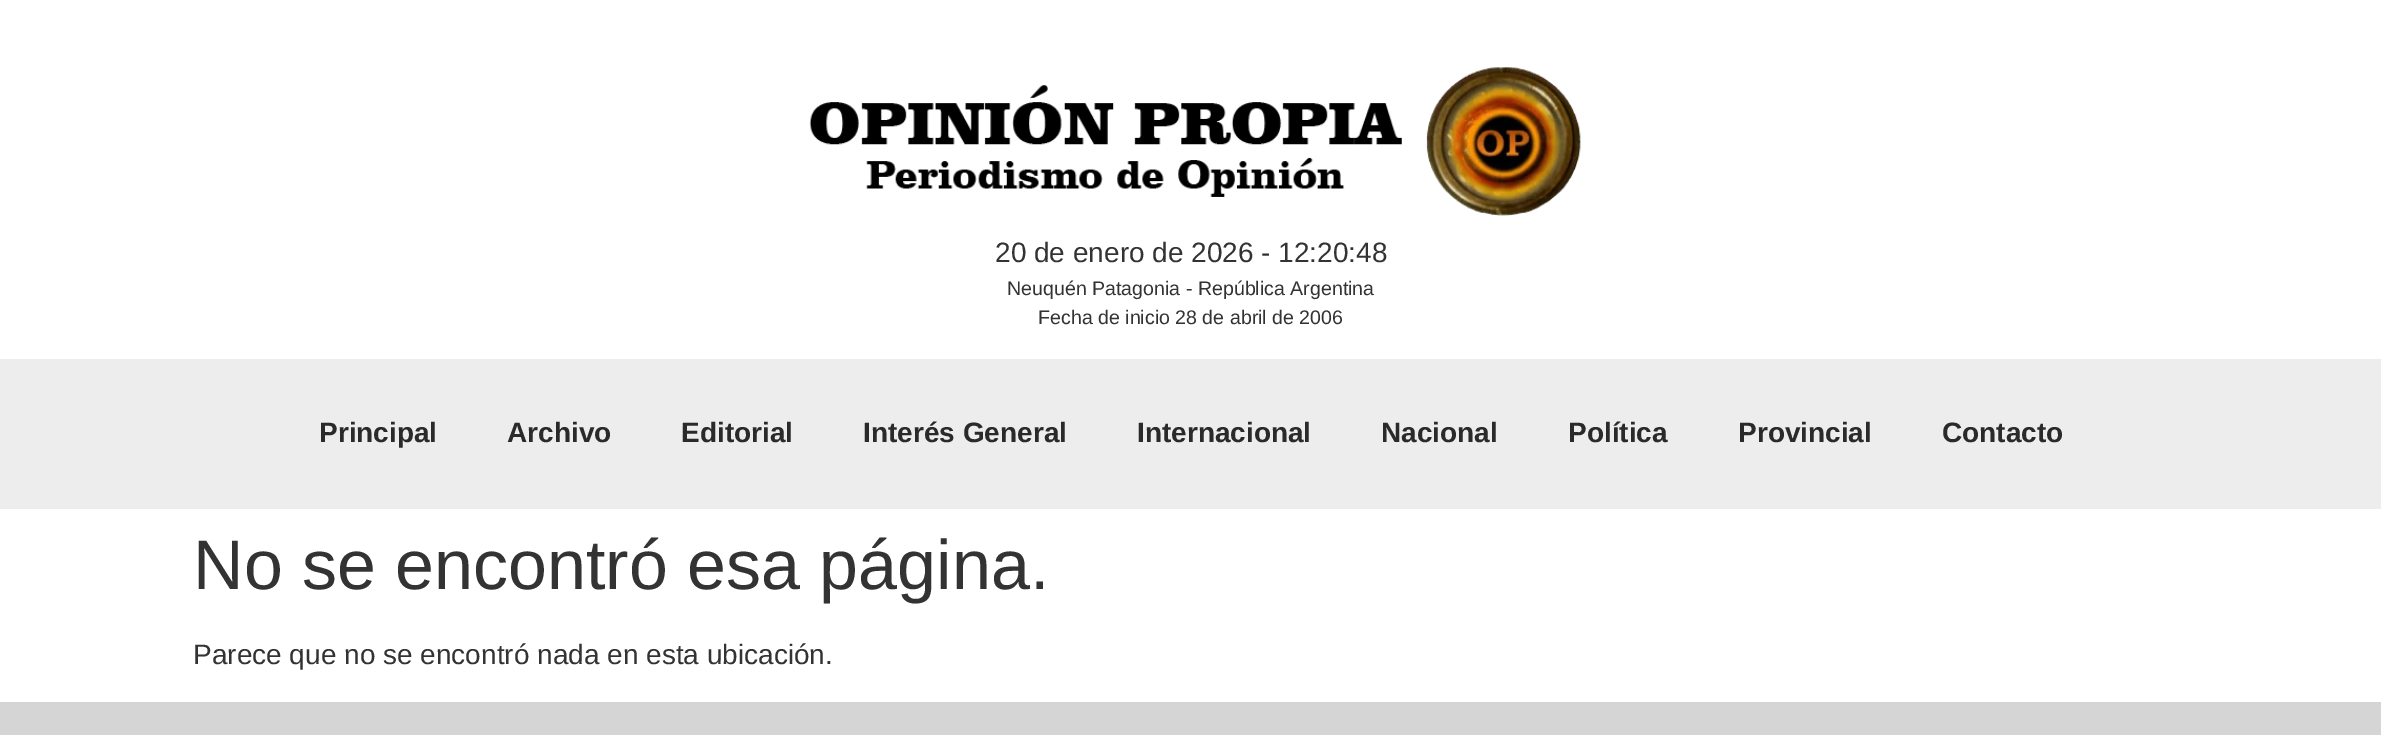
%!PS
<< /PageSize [2381 735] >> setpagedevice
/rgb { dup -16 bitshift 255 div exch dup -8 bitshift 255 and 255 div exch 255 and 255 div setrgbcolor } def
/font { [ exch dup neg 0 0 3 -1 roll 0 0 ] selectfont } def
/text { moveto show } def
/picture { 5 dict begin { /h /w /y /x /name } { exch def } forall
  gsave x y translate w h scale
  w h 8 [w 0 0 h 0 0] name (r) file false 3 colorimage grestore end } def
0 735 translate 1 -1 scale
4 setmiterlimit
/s1 { /LiberationSans-Regular 28 font 16#333333 rgb } def
/s2 { /LiberationSans-Regular 19.6 font 16#333333 rgb } def
/s3 { /LiberationSans-Bold 28 font 16#2A2A2A rgb } def
/s4 { /LiberationSans-Regular 70 font 16#333333 rgb } def
16#FFFFFF rgb
0 0 2381 735 rectfill
(pic1.raw) 809 67 772 149 picture
s1
(20 de enero de 2026 - 12:20:48) 995 262 text
s2
(Neuquén Patagonia - República Argentina) 1007 295 text
(Fecha de inicio 28 de abril de 2006) 1038 324 text
16#EDEDED rgb
0 359 2381 150 rectfill
s3
(Principal) 319 442 text
(Archivo) 507 442 text
(Editorial) 681 442 text
(Interés General) 863 442 text
(Internacional) 1137 442 text
(Nacional) 1381 442 text
(Política) 1568 442 text
(Provincial) 1738 442 text
(Contacto) 1942 442 text
s4
(No se encontró esa página.) 193 589 text
s1
(Parece que no se encontró nada en esta ubicación.) 193 664 text
16#D5D5D5 rgb
0 702 2381 33 rectfill
showpage
